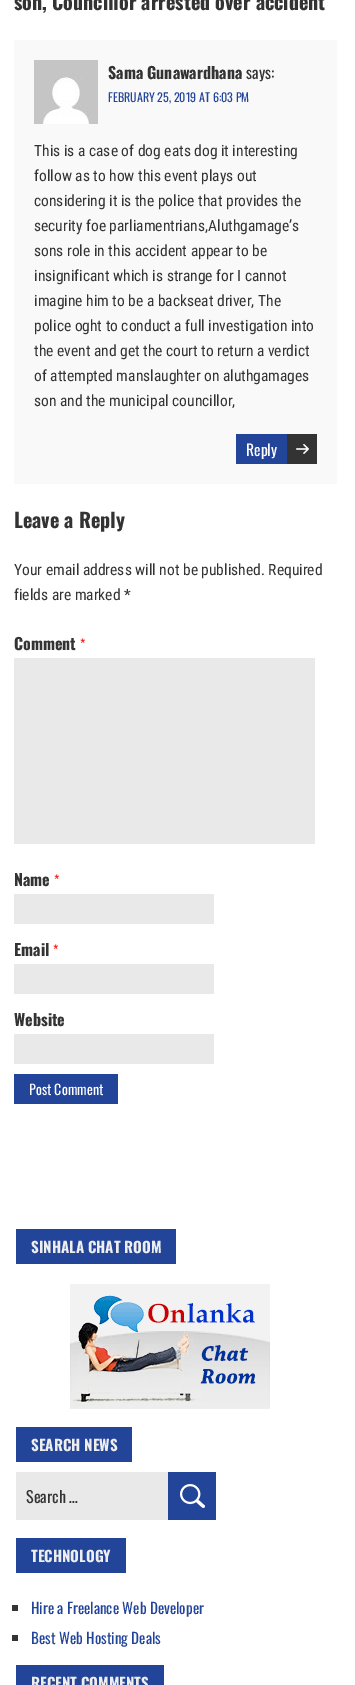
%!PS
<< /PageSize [355 1685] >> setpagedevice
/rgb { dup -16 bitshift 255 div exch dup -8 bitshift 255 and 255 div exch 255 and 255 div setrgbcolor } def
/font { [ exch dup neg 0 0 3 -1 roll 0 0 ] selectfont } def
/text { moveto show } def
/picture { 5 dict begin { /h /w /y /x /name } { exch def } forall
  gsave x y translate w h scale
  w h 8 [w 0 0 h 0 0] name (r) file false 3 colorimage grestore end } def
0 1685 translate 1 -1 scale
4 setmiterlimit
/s1 { /Oswald-Bold 20 font 16#333333 rgb } def
/s2 { /Oswald-Bold 16 font 16#333333 rgb } def
/s3 { /Oswald-Regular 16 font 16#333333 rgb } def
/s4 { /Oswald-Regular 12 font 16#224499 rgb } def
/s5 { /RobotoCondensed-Regular 15.5 font 16#333333 rgb } def
/s6 { /Oswald-Regular 15.5 font 16#FFFFFF rgb } def
/s7 { /Oswald-Regular 13 font 16#FF0000 rgb } def
/s8 { /Oswald-Regular 14 font 16#FFFFFF rgb } def
/s9 { /Oswald-Bold 15 font 16#EEEEEE rgb } def
/s10 { /Oswald-Regular 15 font 16#224499 rgb } def
16#FFFFFF rgb
0 0 355 1685 rectfill
s1
(son, Councillor arrested over accident) 14 10 text
16#F9F9F9 rgb
14 40 323 444 rectfill
(pic1.raw) 34 60 64 64 picture
s2
(Sama Gunawardhana) 108 79 text
s3
(says:) 246 79 text
s4
(FEBRUARY 25, 2019 AT 6:03 PM) 108 102 text
s5
(This is a case of dog eats dog it interesting) 34 156 text
(follow as to how this event plays out) 34 181 text
(considering it is the police that provides the) 34 206 text
(security foe parliamentrians,Aluthgamage’s) 34 231 text
(sons role in this accident appear to be) 34 256 text
(insignificant which is strange for I cannot) 34 281 text
(imagine him to be a backseat driver, The) 34 306 text
(police oght to conduct a full investigation into) 34 331 text
(the event and get the court to return a verdict) 34 356 text
(of attempted manslaughter on aluthgamages) 34 381 text
(son and the municipal councillor,) 34 406 text
16#224499 rgb
236 434 51 30 rectfill
(pic2.raw) 287 434 30 30 picture
s6
(Reply) 246 456 text
s1
(Leave a Reply) 14 528 text
s5
(Your email address will not be published. Required) 14 575 text
(fields are marked *) 14 600 text
s2
(Comment) 14 650 text
s7
(*) 80 649 text
16#E9E9E9 rgb
14 658 301 186 rectfill
s2
(Name) 14 886 text
s7
(*) 54 885 text
16#E9E9E9 rgb
14 894 200 30 rectfill
s2
(Email) 14 956 text
s7
(*) 53 955 text
16#E9E9E9 rgb
14 964 200 30 rectfill
s2
(Website) 14 1026 text
16#E9E9E9 rgb
14 1034 200 30 rectfill
16#224499 rgb
14 1074 104 30 rectfill
s8
(Post Comment) 29 1095 text
16#224499 rgb
16 1229 160 35 rectfill
s9
(SINHALA CHAT ROOM) 31 1253 text
(pic3.raw) 70 1284 200 125 picture
16#224499 rgb
16 1427 116 35 rectfill
s9
(SEARCH NEWS) 31 1451 text
16#E9E9E9 rgb
16 1472 152 48 rectfill
s3
(Search …) 26 1503 text
16#224499 rgb
168 1472 48 48 rectfill
(pic4.raw) 180 1484 25 24 picture
16 1538 110 35 rectfill
s9
(TECHNOLOGY) 31 1562 text
16#333333 rgb
12 1605 6 6 rectfill
s10
(Hire a Freelance Web Developer) 31 1614 text
16#333333 rgb
12 1635 6 6 rectfill
s10
(Best Web Hosting Deals) 31 1644 text
16 1665 148 20 rectfill
s9
(RECENT COMMENTS) 31 1689 text
showpage
